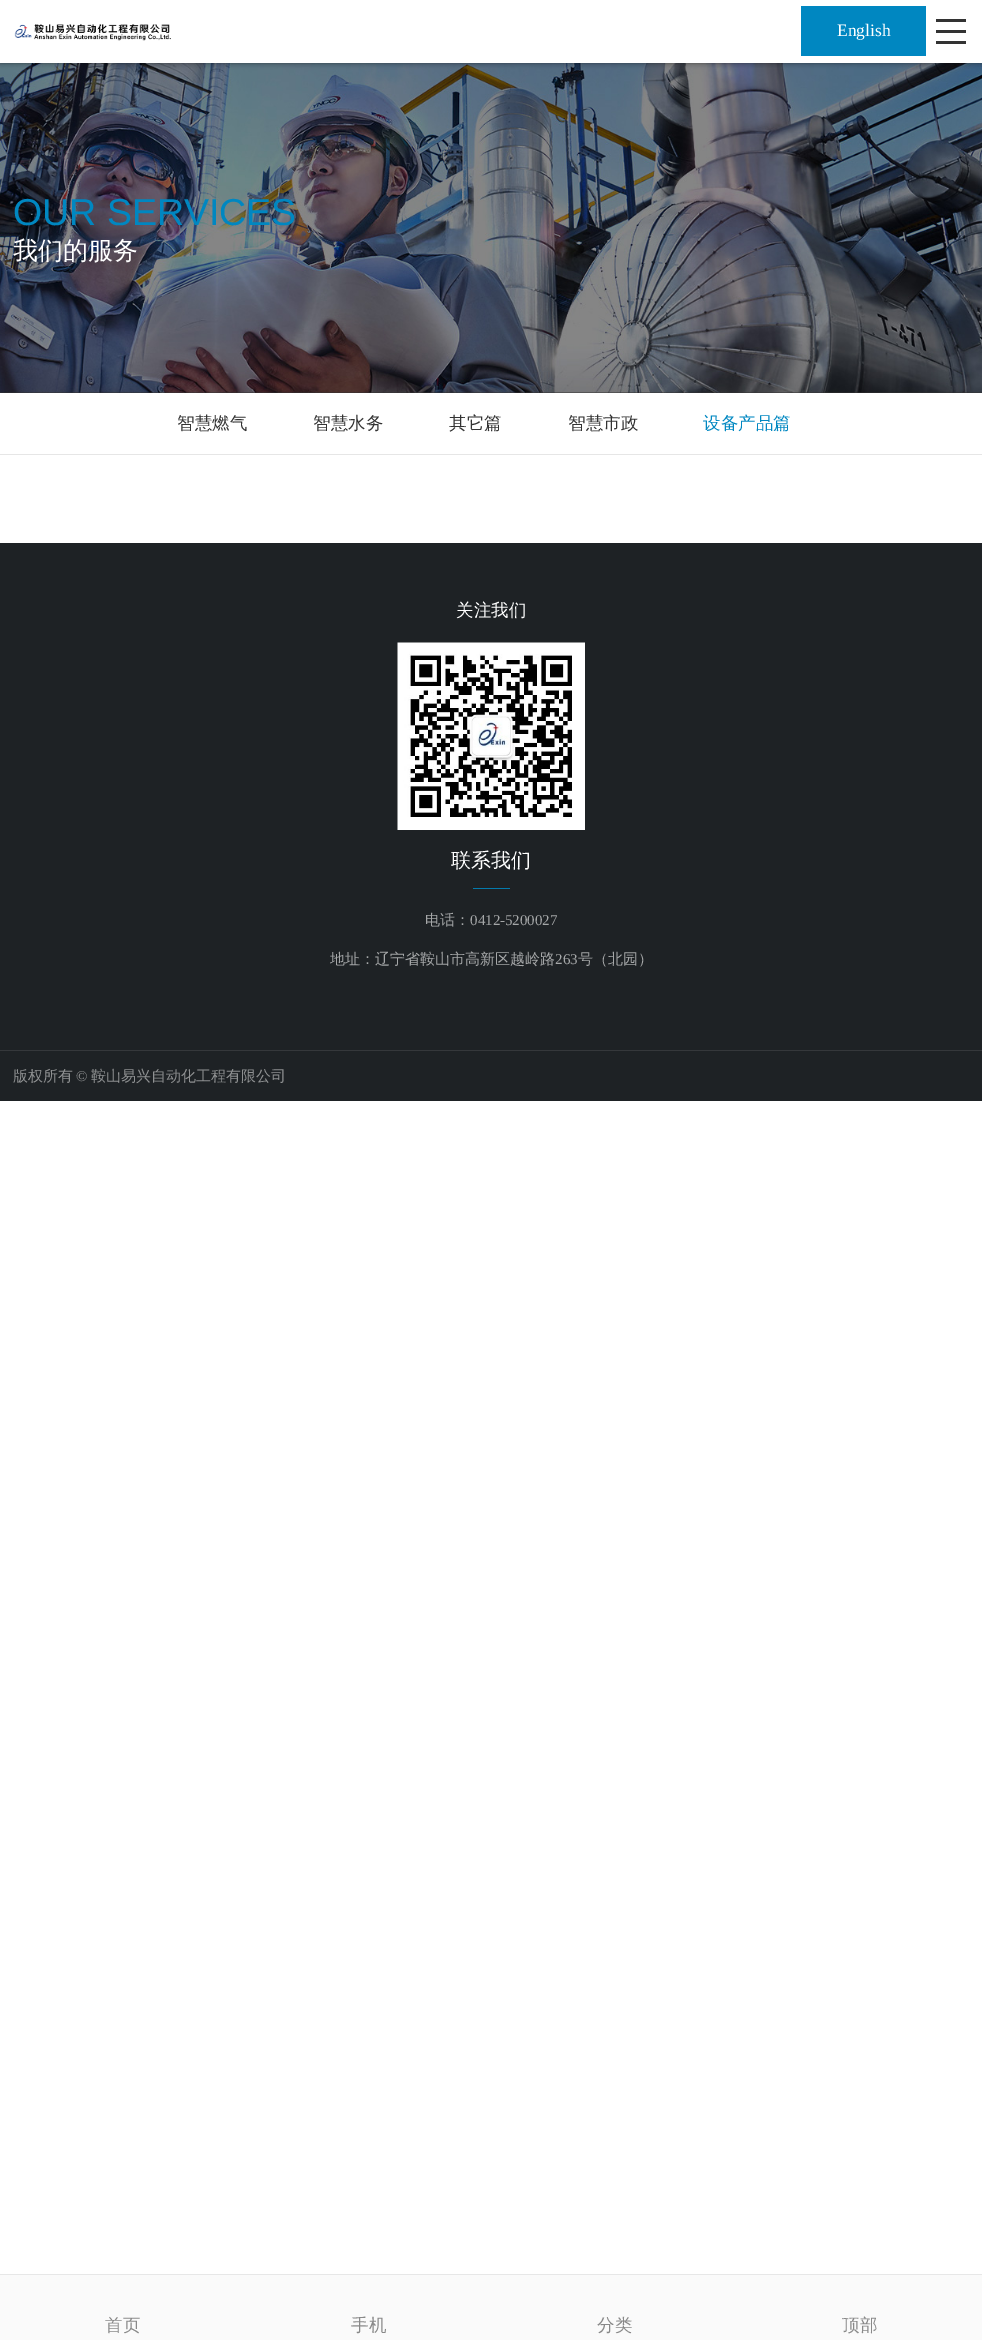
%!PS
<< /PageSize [982 2340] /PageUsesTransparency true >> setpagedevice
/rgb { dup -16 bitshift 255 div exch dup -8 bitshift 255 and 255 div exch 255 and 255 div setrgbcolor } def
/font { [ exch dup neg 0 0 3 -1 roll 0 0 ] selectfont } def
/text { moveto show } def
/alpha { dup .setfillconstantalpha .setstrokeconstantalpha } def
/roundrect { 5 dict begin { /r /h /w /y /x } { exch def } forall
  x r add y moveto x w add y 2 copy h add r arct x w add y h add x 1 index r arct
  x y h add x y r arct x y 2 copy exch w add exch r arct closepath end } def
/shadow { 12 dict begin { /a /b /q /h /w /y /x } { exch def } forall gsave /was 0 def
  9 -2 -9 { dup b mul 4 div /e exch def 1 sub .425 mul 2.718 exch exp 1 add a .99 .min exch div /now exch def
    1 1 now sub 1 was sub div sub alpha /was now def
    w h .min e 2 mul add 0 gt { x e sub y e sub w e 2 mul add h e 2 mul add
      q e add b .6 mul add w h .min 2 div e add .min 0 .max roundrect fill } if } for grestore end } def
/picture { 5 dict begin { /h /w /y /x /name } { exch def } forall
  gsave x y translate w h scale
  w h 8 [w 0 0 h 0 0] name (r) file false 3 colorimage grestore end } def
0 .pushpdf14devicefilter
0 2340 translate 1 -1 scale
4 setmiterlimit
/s1 { /LiberationSerif-Regular 17.5 font 16#FFFFFF rgb } def
/s2 { /LiberationSans-Regular 37.5 font 16#0087C1 rgb } def
/s3 { /WenQuanYiZenHei-Medium 25 font 16#FFFFFF rgb } def
/s4 { /WenQuanYiZenHei-Medium 17.5 font 16#333333 rgb } def
/s5 { /WenQuanYiZenHei-Medium 17.5 font 16#0087C1 rgb } def
/s6 { /WenQuanYiZenHei-Medium 17.5 font 16#FFFFFF rgb } def
/s7 { /WenQuanYiZenHei-Medium 20 font 16#FFFFFF rgb } def
/s8 { /WenQuanYiZenHei-Medium 15 font 16#A5A7A8 rgb } def
/s9 { /LiberationSerif-Regular 15 font 16#A5A7A8 rgb } def
/s10 { /WenQuanYiZenHei-Medium 15 font 16#8F9192 rgb } def
/s11 { /LiberationSerif-Regular 15 font 16#8F9192 rgb } def
/s12 { /WenQuanYiZenHei-Medium 17.5 font 16#898989 rgb } def
16#FFFFFF rgb
0 0 982 2340 rectfill
16#333333 rgb
0 392 982 1 rectfill
(pic2.raw) 0 63 982 330 picture
16#000000 rgb
0 0 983 63 0 3 0.5 shadow
16#FFFFFF rgb
0 0 982 63 rectfill
(pic1.raw) 14 24 157 17 picture
16#0087C1 rgb
801 6 125 50 rectfill
s1
(English) 837 36 text
16#333333 rgb
936 19 30 3 rectfill
936 30 30 3 rectfill
936 41 30 3 rectfill
s2
(OUR SERVICES) 13 225 text
s3
(我们的服务) 13 259 text
16#E6E6E6 rgb
0 454 982 1 rectfill
s4
(智慧燃气) 177 429 text
(智慧水务) 313 429 text
(其它篇) 449 429 text
(智慧市政) 568 429 text
s5
(设备产品篇) 703 429 text
16#1E2225 rgb
0 543 982 558 rectfill
s6
(关注我们) 456 616 text
(pic3.raw) 397 642 188 188 picture
s7
(联系我们) 451 867 text
16#047AAC rgb
473 888 37 1 rectfill
s8
(电话：) 425 925 text
s9
(0412-5200027) 470 925 text
s8
(地址：辽宁省鞍山市高新区越岭路) 330 964 text
s9
(263) 555 964 text
s8
(号（北园）) 578 964 text
16#35383B rgb
0 1050 982 1 rectfill
s10
(版权所有) 13 1081 text
s11
(©) 76 1081 text
s10
(鞍山易兴自动化工程有限公司) 91 1081 text
16#FAFAFA rgb
0 2275 982 65 rectfill
16#E7E7E7 rgb
0 2274 982 1 rectfill
s12
(首页) 105 2331 text
(手机) 351 2331 text
(分类) 597 2331 text
(顶部) 842 2331 text
.poppdf14devicefilter showpage
